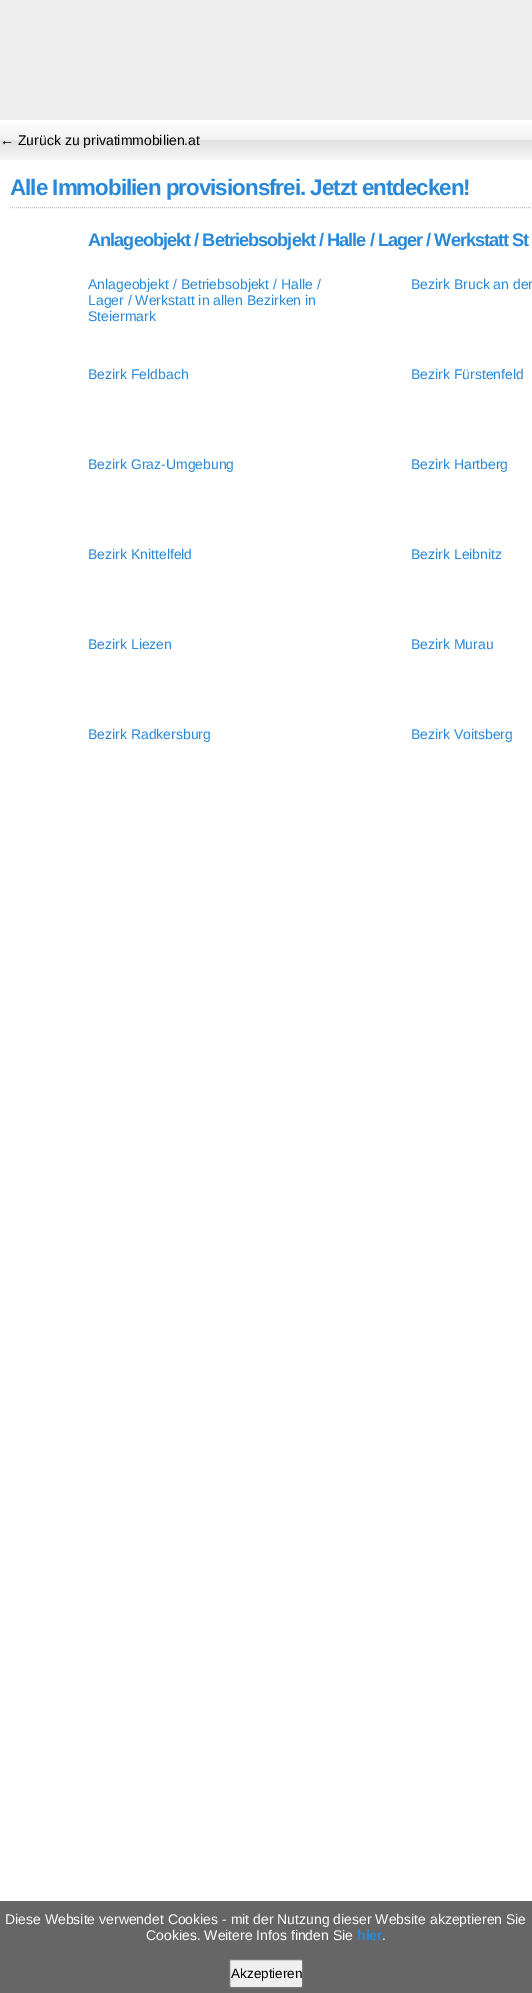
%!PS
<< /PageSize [532 1993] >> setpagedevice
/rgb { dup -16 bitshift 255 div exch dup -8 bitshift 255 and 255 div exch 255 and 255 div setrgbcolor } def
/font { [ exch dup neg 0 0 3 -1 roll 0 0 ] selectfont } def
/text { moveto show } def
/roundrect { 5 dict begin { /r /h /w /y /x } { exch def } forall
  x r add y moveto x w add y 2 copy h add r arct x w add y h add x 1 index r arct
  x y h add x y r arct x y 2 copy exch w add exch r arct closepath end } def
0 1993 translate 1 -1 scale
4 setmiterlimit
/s1 { /LiberationSans-Regular 14 font 16#000000 rgb } def
/s2 { /LiberationSans-Regular 14 font 16#2989D8 rgb } def
/s3 { /LiberationSans-Regular 14 font 16#FFFFFF rgb } def
/s4 { /LiberationSans-Bold 14 font 16#2989D8 rgb } def
/s5 { /LiberationSans-Regular 13.5 font 16#000000 rgb } def
16#FFFFFF rgb
0 0 532 1993 rectfill
16#EEEEEE rgb
0 0 532 120 rectfill
gsave 0 124 moveto 532 124 lineto 532 160 lineto 0 160 lineto closepath clip newpath
<< /ShadingType 2 /ColorSpace /DeviceRGB /Coords [266 120 266 160] /Extend [true true] /Function << /FunctionType 3 /Domain [0 1] /Functions [<< /FunctionType 2 /Domain [0 1] /C0 [1 1 1] /C1 [0.945 0.945 0.945] /N 1 >> << /FunctionType 2 /Domain [0 1] /C0 [0.945 0.945 0.945] /C1 [0.882 0.882 0.882] /N 1 >> << /FunctionType 2 /Domain [0 1] /C0 [0.882 0.882 0.882] /C1 [0.965 0.965 0.965] /N 1 >>] /Bounds [0.5 0.51] /Encode [0 1 0 1 0 1] >> >> shfill grestore
s1
(← Zurück zu privatimmobilien.at) 0 145 text
/LiberationSans-Bold 22.4 font
16#2989D8 rgb
10 195 moveto -1 0 (Alle Immobilien provisionsfrei. Jetzt entdecken!) ashow
16#C0C0C0 rgb
[1 1] 0 setdash
10 207.5 moveto 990 207.5 lineto stroke
/LiberationSans-Bold 18.2 font
16#2989D8 rgb
88 246 moveto -1 0 (Anlageobjekt / Betriebsobjekt / Halle / Lager / Werkstatt St) ashow
s2
(Anlageobjekt / Betriebsobjekt / Halle /) 88 289 text
(Lager / Werkstatt in allen Bezirken in) 88 305 text
(Steiermark) 88 321 text
(Bezirk Bruck an der) 411 289 text
(Bezirk Feldbach) 88 379 text
(Bezirk Fürstenfeld) 411 379 text
(Bezirk Graz-Umgebung) 88 469 text
(Bezirk Hartberg) 411 469 text
(Bezirk Knittelfeld) 88 559 text
(Bezirk Leibnitz) 411 559 text
(Bezirk Liezen) 88 649 text
(Bezirk Murau) 411 649 text
(Bezirk Radkersburg) 88 739 text
(Bezirk Voitsberg) 411 739 text
16#666666 rgb
0 1901 532 92 rectfill
s3
(Diese Website verwendet Cookies - mit der Nutzung dieser Website akzeptieren Sie) 5 1924 text
(Cookies. Weitere Infos finden Sie) 146 1940 text
s4
(hier) 357 1940 text
s3
(.) 382 1940 text
16#EFEFEF rgb
229.5 1959.5 73 28 1.5 roundrect gsave fill grestore
16#767676 rgb
[] 0 setdash
stroke
s5
(Akzeptieren) 231 1978 text
showpage
